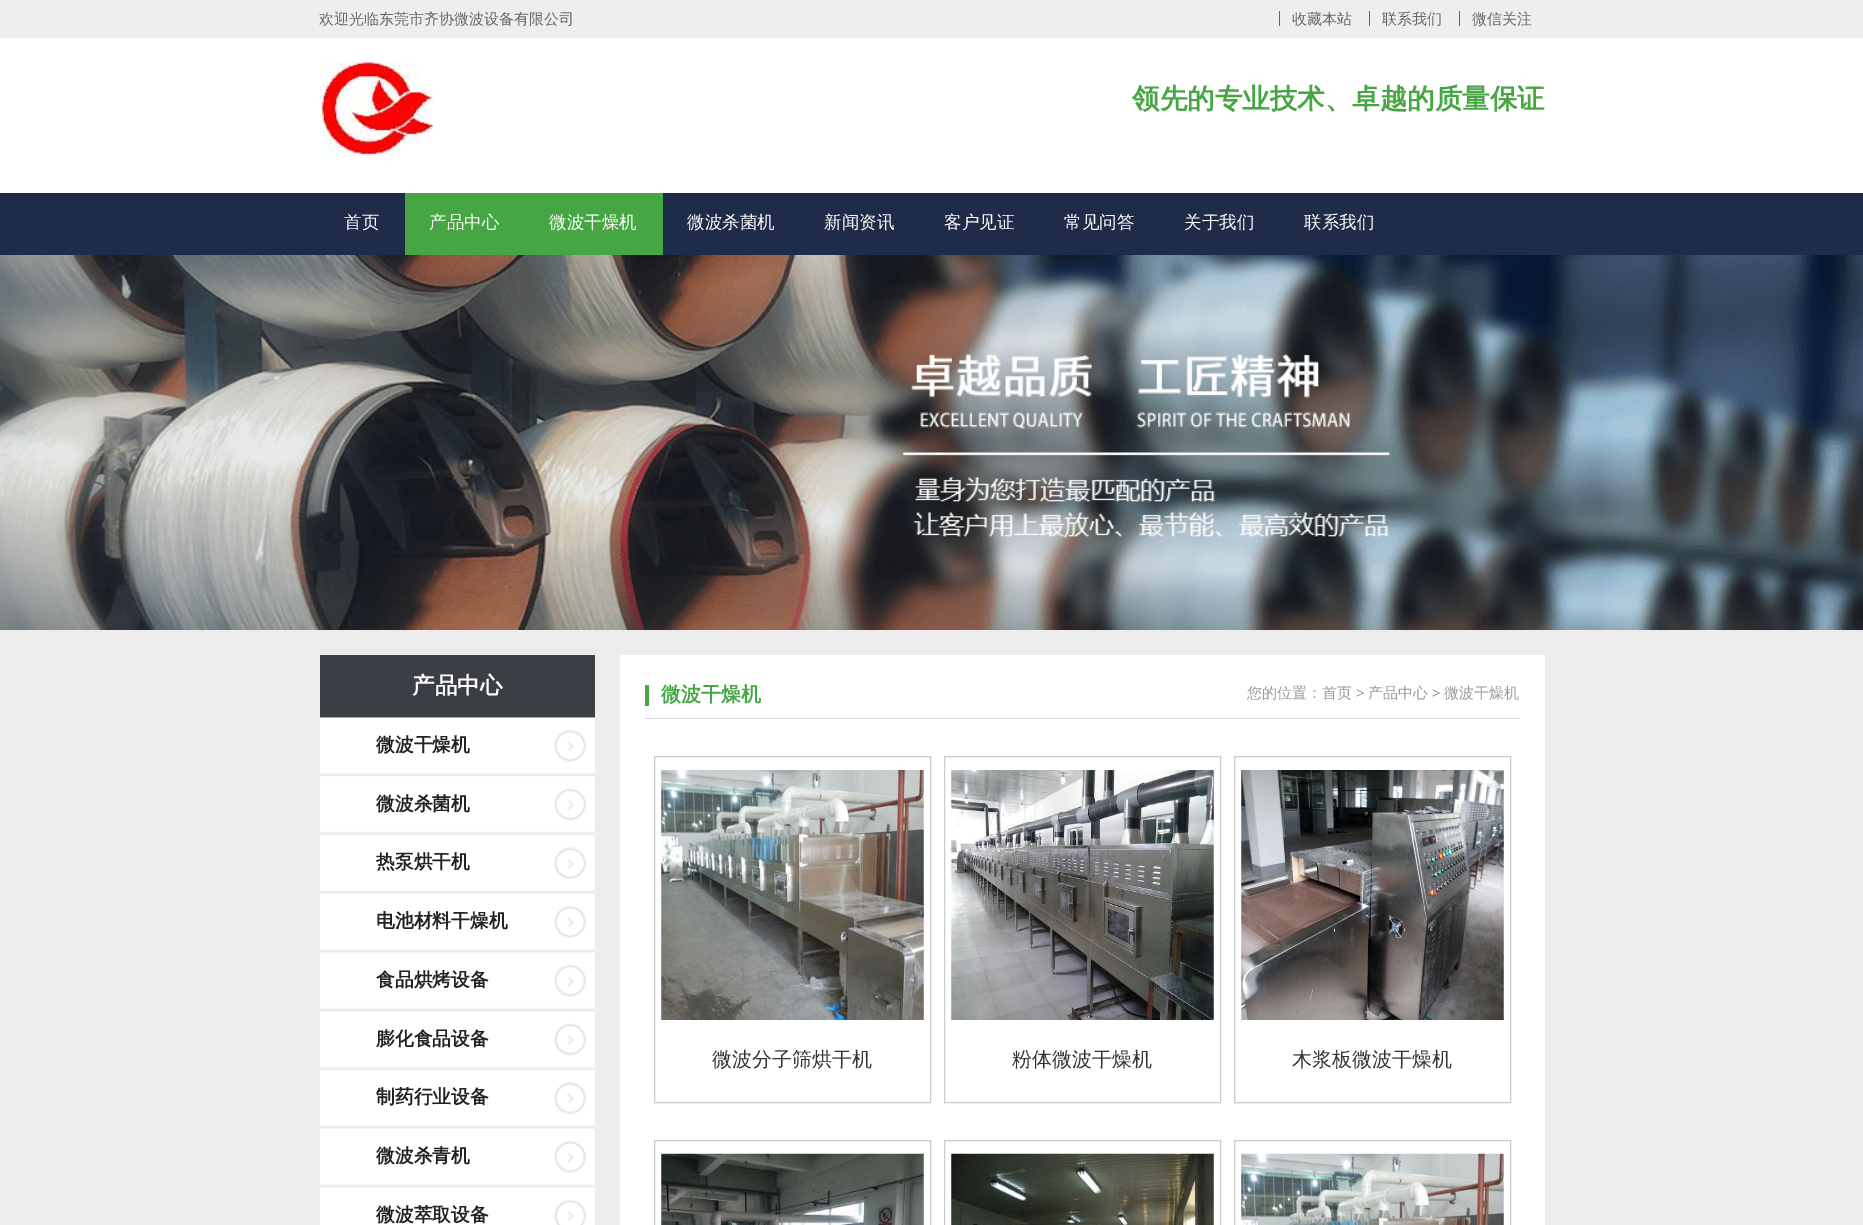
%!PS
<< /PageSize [1863 1225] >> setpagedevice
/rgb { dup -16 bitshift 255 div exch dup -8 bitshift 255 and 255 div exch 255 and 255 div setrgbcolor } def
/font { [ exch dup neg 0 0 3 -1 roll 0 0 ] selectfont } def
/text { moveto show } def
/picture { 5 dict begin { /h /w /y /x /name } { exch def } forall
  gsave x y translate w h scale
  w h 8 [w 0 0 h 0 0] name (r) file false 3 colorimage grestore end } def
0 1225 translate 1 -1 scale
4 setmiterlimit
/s1 { /WenQuanYiZenHei-Medium 15 font 16#666666 rgb } def
/s2 { /WenQuanYiZenHei-Bold 27.5 font 16#45A643 rgb } def
/s3 { /WenQuanYiZenHei-Medium 17.5 font 16#FFFFFF rgb } def
/s4 { /WenQuanYiZenHei-Bold 22.5 font 16#FFFFFF rgb } def
/s5 { /WenQuanYiZenHei-Bold 18.75 font 16#222222 rgb } def
/s6 { /WenQuanYiZenHei-Bold 20 font 16#45A643 rgb } def
/s7 { /WenQuanYiZenHei-Medium 15 font 16#999999 rgb } def
/s8 { /LiberationSerif-Regular 15 font 16#666666 rgb } def
/s9 { /WenQuanYiZenHei-Medium 20 font 16#333333 rgb } def
16#FFFFFF rgb
0 0 1863 1225 rectfill
16#EEEEEE rgb
0 0 1863 38 rectfill
s1
(欢迎光临东莞市齐协微波设备有限公司) 319 24 text
1279 11 1 15 rectfill
(收藏本站) 1292 24 text
1369 11 1 15 rectfill
(联系我们) 1382 24 text
1459 11 1 15 rectfill
(微信关注) 1472 24 text
(pic1.raw) 320 62 113 95 picture
s2
(领先的专业技术、卓越的质量保证) 1132 108 text
16#1E2B49 rgb
0 193 1863 62 rectfill
s3
(首页) 344 228 text
16#45A643 rgb
405 193 258 62 rectfill
s3
(产品中心) 429 228 text
(微波干燥机) 549 228 text
(微波杀菌机) 687 228 text
(新闻资讯) 824 228 text
(客户见证) 944 228 text
(常见问答) 1064 228 text
(关于我们) 1184 228 text
(联系我们) 1304 228 text
(pic2.raw) 0 255 1863 375 picture
16#ECECEC rgb
0 630 1863 595 rectfill
16#3C3E46 rgb
320 655 275 63 rectfill
s4
(产品中心) 412 693 text
(pic3.raw) 320 717 275 57 picture
s5
(微波干燥机) 376 751 text
(pic4.raw) 320 776 275 57 picture
(微波杀菌机) 376 810 text
(pic5.raw) 320 835 275 56 picture
(热泵烘干机) 376 868 text
(pic6.raw) 320 893 275 57 picture
(电池材料干燥机) 376 927 text
(pic7.raw) 320 952 275 57 picture
(食品烘烤设备) 376 986 text
(pic8.raw) 320 1011 275 57 picture
(膨化食品设备) 376 1045 text
(pic5.raw) 320 1070 275 56 picture
(制药行业设备) 376 1103 text
(pic6.raw) 320 1128 275 57 picture
(微波杀青机) 376 1162 text
(pic9.raw) 320 1187 275 38 picture
(微波萃取设备) 376 1221 text
16#FFFFFF rgb
620 655 925 570 rectfill
16#DBDBDB rgb
645 718 875 1 rectfill
16#46A644 rgb
645 685 4 21 rectfill
s6
(微波干燥机) 661 701 text
s7
(您的位置：首页) 1247 698 text
s8
(>) 1356 698 text
s7
(产品中心) 1368 698 text
s8
(>) 1432 698 text
s7
(微波干燥机) 1444 698 text
16#CCCCCC rgb
654.5 756.5 276 346 rectstroke
(pic10.raw) 661 770 263 250 picture
s9
(微波分子筛烘干机) 712 1066 text
16#CCCCCC rgb
944.5 756.5 276 346 rectstroke
(pic11.raw) 951 770 263 250 picture
s9
(粉体微波干燥机) 1012 1066 text
16#CCCCCC rgb
1234.5 756.5 276 346 rectstroke
(pic12.raw) 1241 770 263 250 picture
s9
(木浆板微波干燥机) 1292 1066 text
16#CCCCCC rgb
654.5 1140.5 276 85 rectstroke
(pic13.raw) 661 1153 263 72 picture
944.5 1140.5 276 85 rectstroke
(pic14.raw) 951 1153 263 72 picture
1234.5 1140.5 276 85 rectstroke
(pic15.raw) 1241 1153 263 72 picture
showpage
